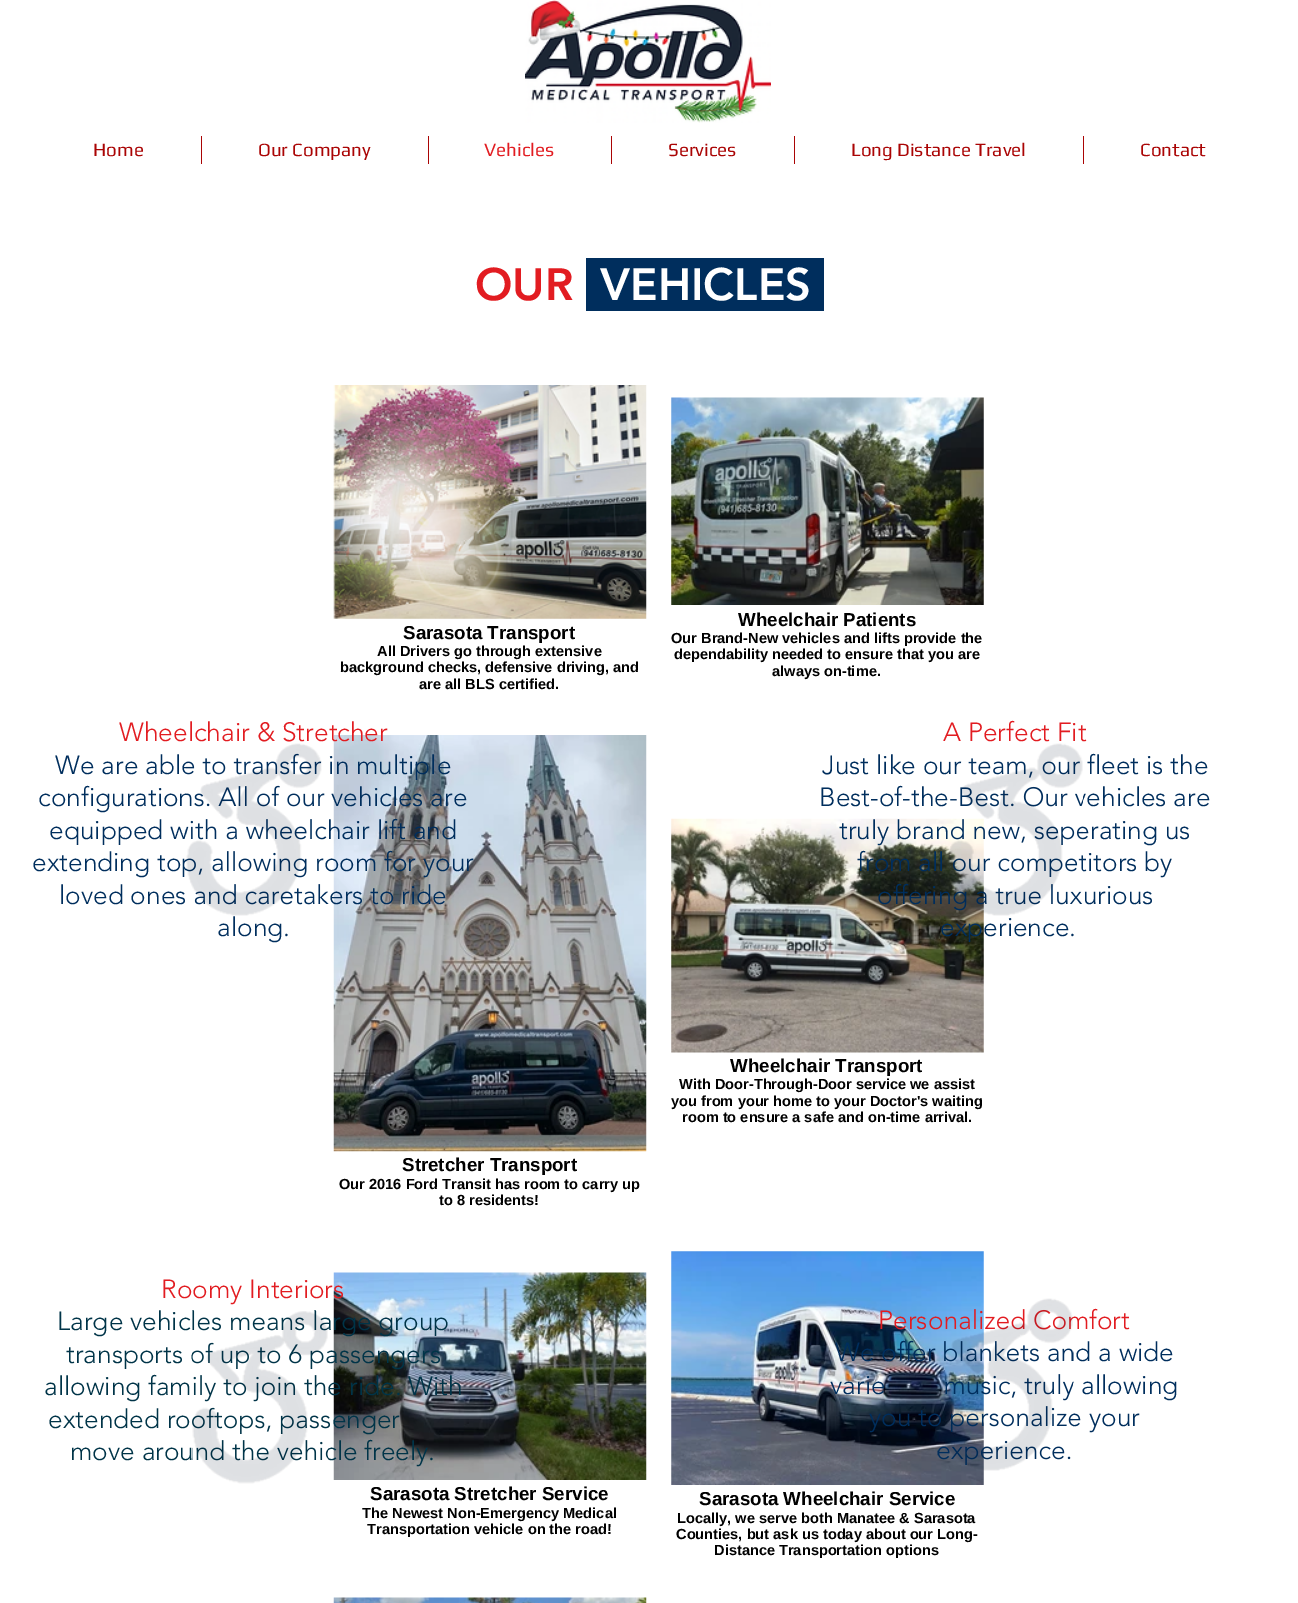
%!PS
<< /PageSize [1298 1603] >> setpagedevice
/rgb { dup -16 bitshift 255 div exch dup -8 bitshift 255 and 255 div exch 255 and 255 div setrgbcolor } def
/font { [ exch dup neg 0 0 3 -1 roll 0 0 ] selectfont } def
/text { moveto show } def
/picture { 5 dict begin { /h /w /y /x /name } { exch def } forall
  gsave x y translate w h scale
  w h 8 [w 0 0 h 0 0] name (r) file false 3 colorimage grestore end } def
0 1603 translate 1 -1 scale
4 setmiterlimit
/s1 { /Play-Regular 18.75 font 16#AA0404 rgb } def
/s2 { /Play-Regular 18.75 font 16#E21C21 rgb } def
/s3 { /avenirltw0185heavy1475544-Black 45 font 16#E21C21 rgb } def
/s4 { /avenirltw0185heavy1475544-Black 45 font 16#FFFFFF rgb } def
/s5 { /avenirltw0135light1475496-Light 26.25 font 16#E21C21 rgb } def
/s6 { /avenirltw0135light1475496-Light 26.25 font 16#002E5D rgb } def
/s7 { /LiberationSans-Bold 18.75 font 16#000000 rgb } def
/s8 { /LiberationSans-Bold 14.6 font 16#000000 rgb } def
/s9 { /avenirltw0135light1475496-Light 26.25 font 16#003448 rgb } def
16#FFFFFF rgb
0 0 1298 1603 rectfill
(pic1.raw) 525 0 246 123 picture
s1
(Home) 93 156 text
201 136 1 28 rectfill
(Our Company) 258 156 text
428 136 1 28 rectfill
s2
(Vehicles) 484 156 text
16#AA0404 rgb
611 136 1 28 rectfill
(Services) 668 156 text
794 136 1 28 rectfill
(Long Distance Travel) 851 156 text
1083 136 1 28 rectfill
(Contact) 1140 156 text
s3
(OUR) 475 300 text
16#002E5D rgb
586 258 238 53 rectfill
s4
(VEHICLES) 600 300 text
(pic5.raw) 333 735 314 417 picture
s5
(Wheelchair & Stretcher) 119 741 text
s6
(We are able to transfer in multiple) 55 774 text
(configurations. All of our vehicles are) 38 806 text
(equipped with a wheelchair lift and) 49 839 text
(extending top, allowing room for your) 32 871 text
(loved ones and caretakers to ride) 59 904 text
(along.) 217 936 text
(pic2.raw) 333 385 314 234 picture
s7
(Sarasota Transport) 403 639 text
s8
(All Drivers go through extensive) 377 656 text
(background checks, defensive driving, and) 340 672 text
(are all BLS certified.) 419 689 text
(pic3.raw) 671 397 313 208 picture
s7
(Wheelchair Patients) 738 626 text
s8
(Our Brand-New vehicles and lifts provide the) 671 643 text
(dependability needed to ensure that you are) 674 659 text
(always on-time.) 772 676 text
(pic4.raw) 671 818 313 235 picture
s7
(Wheelchair Transport) 730 1072 text
s8
(With Door-Through-Door service we assist) 679 1089 text
(you from your home to your Doctor's waiting) 671 1106 text
(room to ensure a safe and on-time arrival.) 682 1122 text
s7
(Stretcher Transport) 402 1171 text
s8
(Our 2016 Ford Transit has room to carry up) 339 1189 text
(to 8 residents!) 439 1205 text
(pic6.raw) 333 1272 314 208 picture
s7
(Sarasota Stretcher Service) 370 1500 text
s8
(The Newest Non-Emergency Medical) 362 1518 text
(Transportation vehicle on the road!) 367 1534 text
(pic7.raw) 671 1251 313 234 picture
s7
(Sarasota Wheelchair Service) 699 1505 text
s8
(Locally, we serve both Manatee & Sarasota) 677 1523 text
(Counties, but ask us today about our Long-) 676 1539 text
(Distance Transportation options) 714 1555 text
(pic8.raw) 333 1597 314 6 picture
s5
(A Perfect Fit) 943 741 text
s6
(Just like our team, our fleet is the) 822 774 text
(Best-of-the-Best. Our vehicles are) 819 806 text
(truly brand new, seperating us) 839 839 text
(from all our competitors by) 857 871 text
(offering a true luxurious) 877 904 text
(experience.) 940 936 text
(pic9.raw) 186 743 136 173 picture
(pic10.raw) 948 743 135 173 picture
s5
(Roomy Interiors) 161 1298 text
s9
(Large vehicles means large group) 57 1330 text
(transports of up to 6 passengers) 66 1363 text
(allowing family to join the ride. With) 44 1395 text
(extended rooftops, passenger) 48 1428 text
(move around the vehicle freely.) 70 1460 text
s5
(Personalized Comfort) 878 1329 text
s6
(We offer blankets and a wide) 835 1361 text
(music, truly allowing) 943 1394 text
(you to personalize your) 869 1426 text
(experience.) 936 1459 text
(pic11.raw) 938 1298 135 173 picture
(pic12.raw) 192 1311 136 173 picture
(varie) 830 1394 text
showpage
